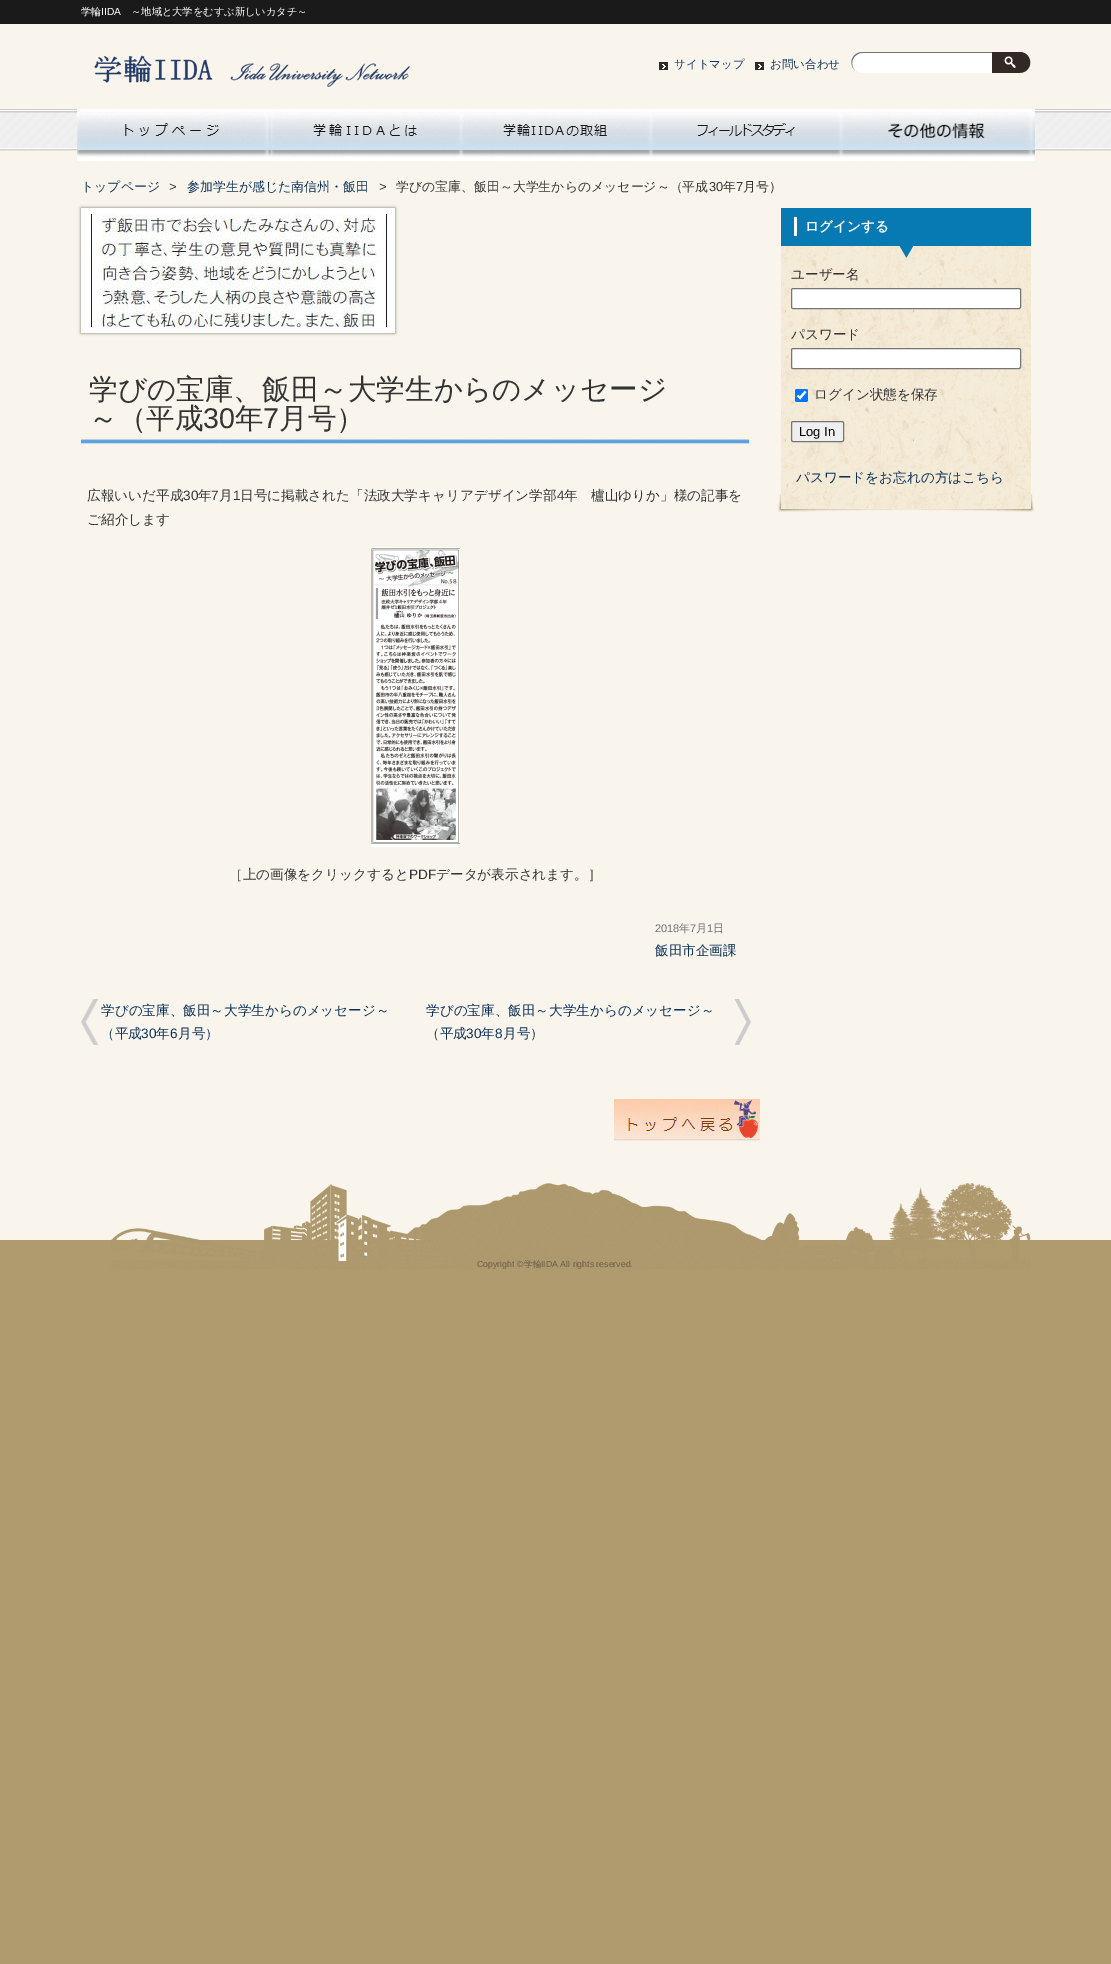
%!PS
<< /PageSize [1111 1964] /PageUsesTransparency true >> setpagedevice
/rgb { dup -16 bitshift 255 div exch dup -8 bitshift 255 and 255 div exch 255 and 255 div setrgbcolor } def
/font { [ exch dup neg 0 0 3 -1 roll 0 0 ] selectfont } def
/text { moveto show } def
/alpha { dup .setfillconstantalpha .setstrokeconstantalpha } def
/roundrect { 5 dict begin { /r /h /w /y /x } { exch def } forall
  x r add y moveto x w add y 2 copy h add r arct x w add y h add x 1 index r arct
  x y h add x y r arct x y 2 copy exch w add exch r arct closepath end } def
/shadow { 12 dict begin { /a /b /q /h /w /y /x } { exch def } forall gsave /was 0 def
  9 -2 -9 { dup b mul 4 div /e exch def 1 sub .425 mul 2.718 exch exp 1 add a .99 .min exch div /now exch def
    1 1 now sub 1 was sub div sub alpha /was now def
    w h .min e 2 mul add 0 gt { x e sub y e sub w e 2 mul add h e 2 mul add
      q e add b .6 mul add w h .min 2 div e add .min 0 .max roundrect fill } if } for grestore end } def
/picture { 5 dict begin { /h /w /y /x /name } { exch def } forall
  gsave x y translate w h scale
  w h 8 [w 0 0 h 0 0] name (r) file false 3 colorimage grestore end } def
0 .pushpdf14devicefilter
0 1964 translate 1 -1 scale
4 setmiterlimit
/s1 { /WenQuanYiZenHei-Medium 10.25 font 16#FFFFFF rgb } def
/s2 { /LiberationSans-Regular 10.25 font 16#FFFFFF rgb } def
/s3 { /WenQuanYiZenHei-Medium 11.5 font 16#0C3158 rgb } def
/s4 { /WenQuanYiZenHei-Medium 12.9 font 16#0C3158 rgb } def
/s5 { /WenQuanYiZenHei-Medium 12.9 font 16#333333 rgb } def
/s6 { /LiberationSans-Regular 12.9 font 16#333333 rgb } def
/s7 { /WenQuanYiZenHei-Medium 28.6 font 16#333333 rgb } def
/s8 { /LiberationSans-Regular 28.6 font 16#333333 rgb } def
/s9 { /WenQuanYiZenHei-Medium 13.6 font 16#333333 rgb } def
/s10 { /LiberationSans-Regular 13.6 font 16#333333 rgb } def
/s11 { /LiberationSans-Regular 11 font 16#707070 rgb } def
/s12 { /WenQuanYiZenHei-Medium 11 font 16#707070 rgb } def
/s13 { /WenQuanYiZenHei-Medium 13.6 font 16#0C3158 rgb } def
/s14 { /LiberationSans-Regular 13.6 font 16#0C3158 rgb } def
/s15 { /WenQuanYiZenHei-Bold 13.6 font 16#FFFFFF rgb } def
/s16 { /LiberationSans-Regular 13 font 16#000000 rgb } def
/s17 { /LiberationSans-Regular 8.75 font 16#695F49 rgb } def
/s18 { /WenQuanYiZenHei-Medium 8.75 font 16#695F49 rgb } def
16#B09B6F rgb
0 0 1111 1964 rectfill
16#F9F5EC rgb
0 24 1111 1216 rectfill
(pic1.raw) 0 109 1111 42 picture
16#1A1A1A rgb
0 0 1111 24 rectfill
s1
(学輪) 81 15 text
s2
(IIDA) 101 15 text
s1
(～地域と大学をむすぶ新しいカタチ～) 131 15 text
(pic2.raw) 94 55 317 32 picture
(pic3.raw) 659 62 9 8 picture
s3
(サイトマップ) 674 68 text
(pic3.raw) 755 62 9 8 picture
(お問い合わせ) 770 68 text
(pic4.raw) 851 52 141 21 picture
(pic5.raw) 992 52 39 21 picture
(pic6.raw) 77 109 194 52 picture
(pic7.raw) 271 109 190 52 picture
(pic8.raw) 461 109 190 52 picture
(pic9.raw) 651 109 190 52 picture
(pic10.raw) 841 109 194 52 picture
s4
(トップページ) 81 191 text
/LiberationSans-Regular 12.9 font
16#333333 rgb
169 191 moveto 10 0 (>) ashow
s4
(参加学生が感じた南信州・飯田) 187 191 text
/LiberationSans-Regular 12.9 font
16#333333 rgb
379 191 moveto 10 0 (>) ashow
s5
(学びの宝庫、飯田～大学生からのメッセージ～（平成) 396 191 text
s6
(30) 709 191 text
s5
(年) 723 191 text
s6
(7) 736 191 text
s5
(月号）) 743 191 text
16#000000 rgb
81 208 314 125 0 1.5 0.5 shadow
16#FFFFFF rgb
81 208 314 125 rectfill
(pic11.raw) 90 214 297 113 picture
(pic12.raw) 81 439 669 5 picture
s7
(学びの宝庫、飯田～大学生からのメッセージ) 89 399 text
(～（平成) 89 428 text
s8
(30) 203 428 text
s7
(年) 235 428 text
s8
(7) 263 428 text
s7
(月号）) 279 428 text
s9
(広報いいだ平成) 87 500 text
s10
(30) 183 500 text
s9
(年) 198 500 text
s10
(7) 211 500 text
s9
(月) 219 500 text
s10
(1) 233 500 text
s9
(日号に掲載された「法政大学キャリアデザイン学部) 240 500 text
s10
(4) 557 500 text
s9
(年　櫨山ゆりか」様の記事を) 564 500 text
(ご紹介します) 87 524 text
(pic13.raw) 371 547 89 300 picture
(［上の画像をクリックすると) 229 879 text
s10
(PDF) 409 879 text
s9
(データが表示されます。］) 436 879 text
s11
(2018) 655 932 text
s12
(年) 679 932 text
s11
(7) 690 932 text
s12
(月) 696 932 text
s11
(1) 707 932 text
s12
(日) 713 932 text
s13
(飯田市企画課) 655 955 text
(pic14.raw) 81 999 18 46 picture
(学びの宝庫、飯田～大学生からのメッセージ～) 101 1015 text
(（平成) 101 1038 text
s14
(30) 141 1038 text
s13
(年) 156 1038 text
s14
(6) 170 1038 text
s13
(月号）) 178 1038 text
(pic15.raw) 734 999 17 46 picture
(学びの宝庫、飯田～大学生からのメッセージ～) 426 1015 text
(（平成) 426 1038 text
s14
(30) 466 1038 text
s13
(年) 481 1038 text
s14
(8) 495 1038 text
s13
(月号）) 503 1038 text
(pic16.raw) 614 1099 146 42 picture
(pic17.raw) 778 494 256 18 picture
(pic19.raw) 781 246 250 263 picture
(pic18.raw) 781 208 250 50 picture
s15
(ログインする) 805 231 text
s9
(ユーザー名) 791 279 text
16#FFFFFF rgb
791.5 288.5 229 20 1.5 roundrect gsave fill grestore
16#767676 rgb
stroke
s9
(パスワード) 791 339 text
16#FFFFFF rgb
791.5 348.5 229 20 1.5 roundrect gsave fill grestore
16#767676 rgb
stroke
16#0075FF rgb
795 389 13 13 2 roundrect fill
16#FFFFFF rgb
2.1 setlinewidth
797.5 395.5 moveto 800 398 lineto 805.5 391.5 lineto stroke
s9
(ログイン状態を保存) 814 399 text
16#EFEFEF rgb
791.5 421.5 52 20 1.5 roundrect gsave fill grestore
16#767676 rgb
1 setlinewidth
stroke
s16
(Log In) 799 436 text
s13
(パスワードをお忘れの方はこちら) 796 482 text
(pic20.raw) 111 1183 920 86 picture
s17
(Copyright ©) 477 1267 text
s18
(学輪) 524 1267 text
s17
(IIDA All rights reserved.) 541 1267 text
.poppdf14devicefilter showpage
